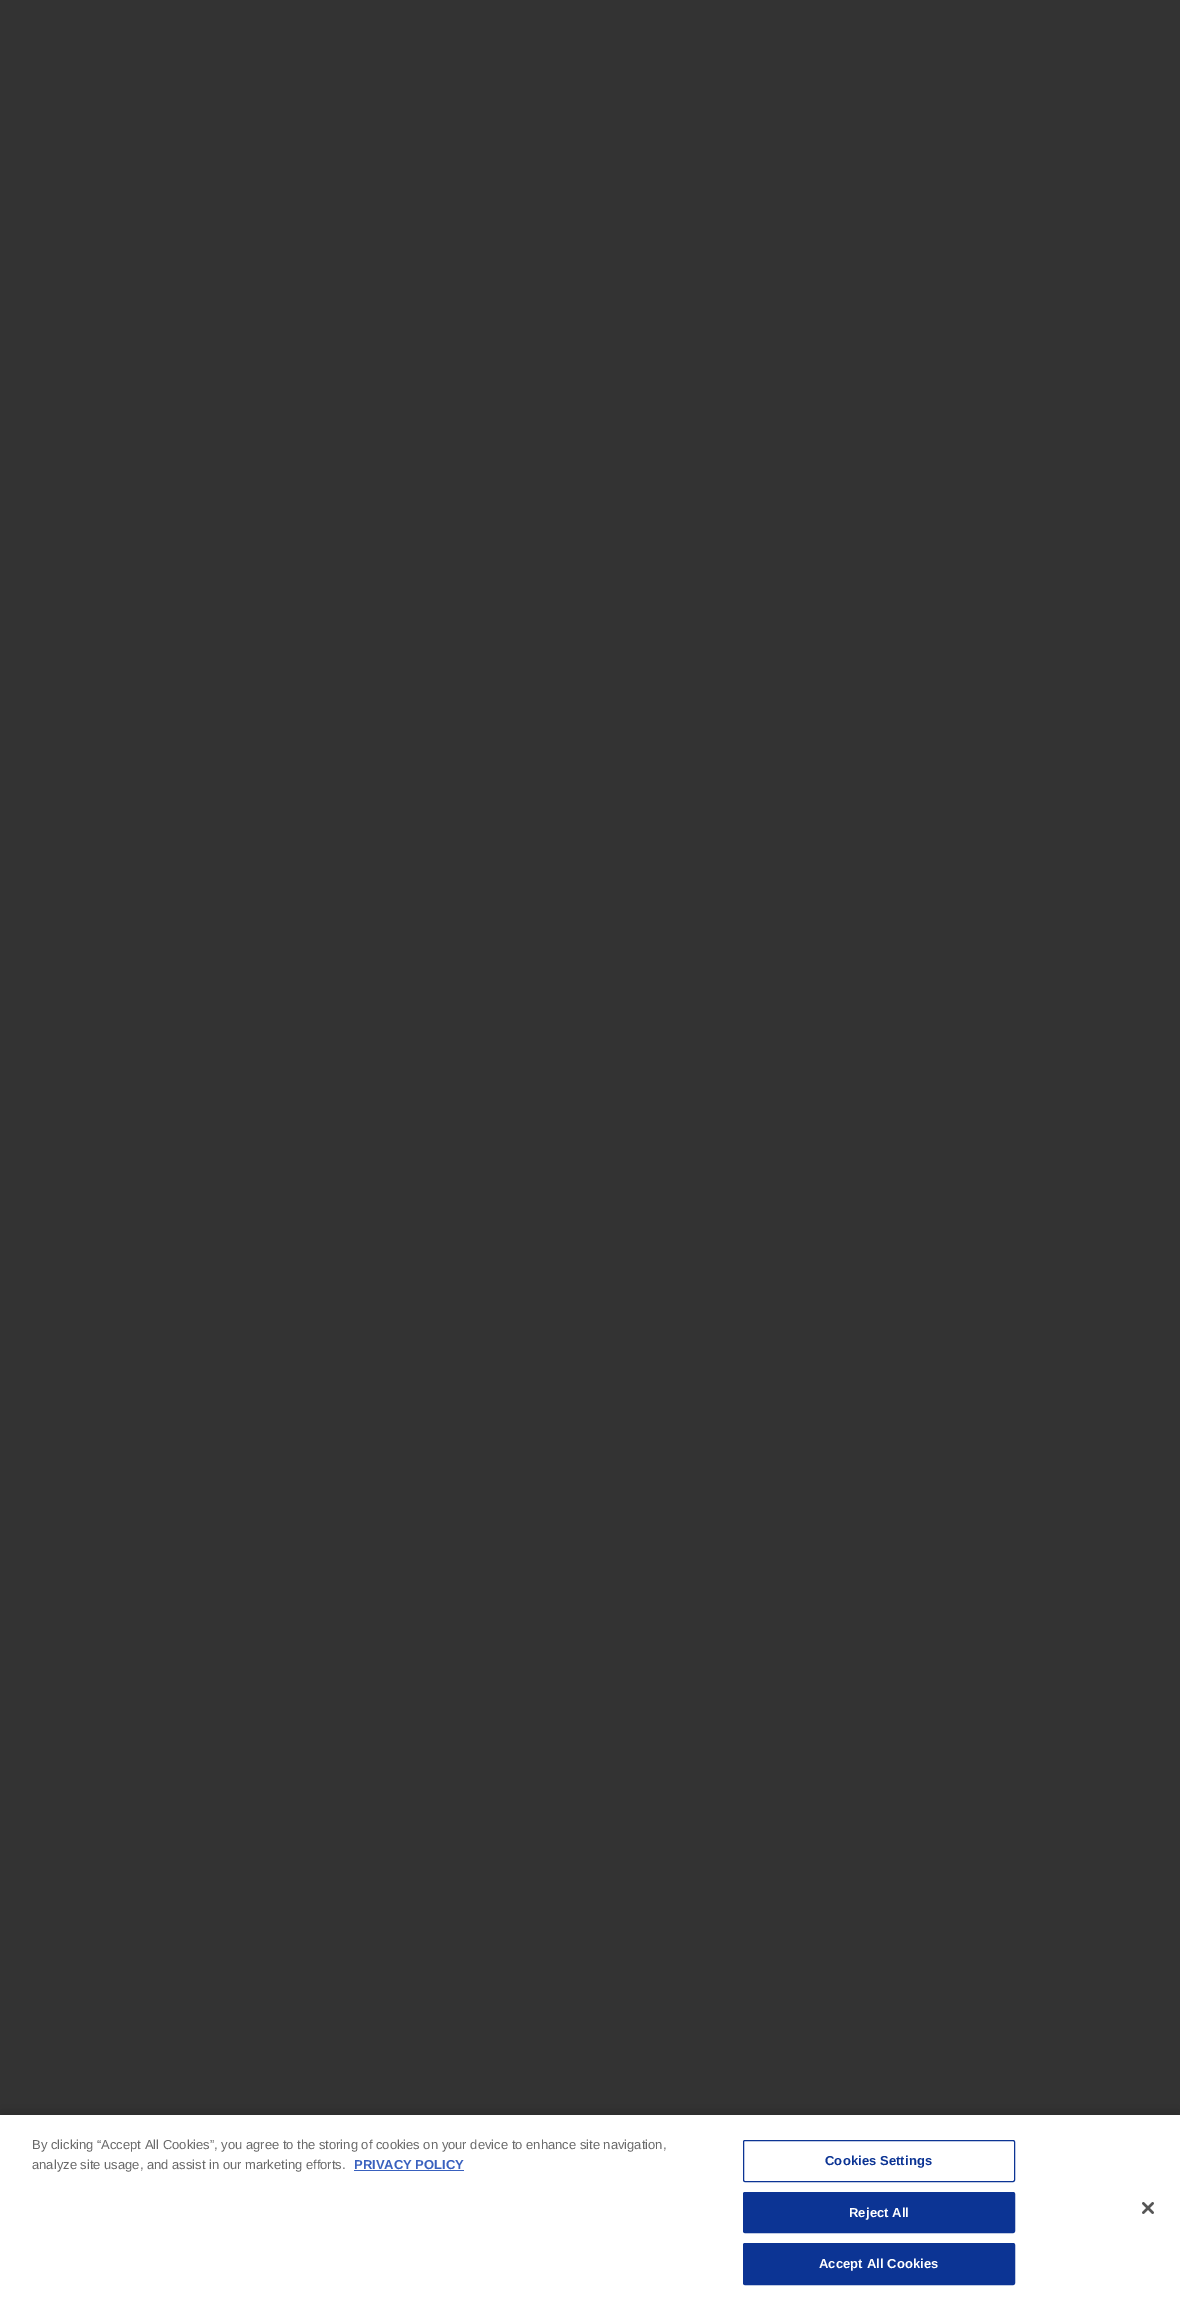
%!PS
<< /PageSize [1180 2305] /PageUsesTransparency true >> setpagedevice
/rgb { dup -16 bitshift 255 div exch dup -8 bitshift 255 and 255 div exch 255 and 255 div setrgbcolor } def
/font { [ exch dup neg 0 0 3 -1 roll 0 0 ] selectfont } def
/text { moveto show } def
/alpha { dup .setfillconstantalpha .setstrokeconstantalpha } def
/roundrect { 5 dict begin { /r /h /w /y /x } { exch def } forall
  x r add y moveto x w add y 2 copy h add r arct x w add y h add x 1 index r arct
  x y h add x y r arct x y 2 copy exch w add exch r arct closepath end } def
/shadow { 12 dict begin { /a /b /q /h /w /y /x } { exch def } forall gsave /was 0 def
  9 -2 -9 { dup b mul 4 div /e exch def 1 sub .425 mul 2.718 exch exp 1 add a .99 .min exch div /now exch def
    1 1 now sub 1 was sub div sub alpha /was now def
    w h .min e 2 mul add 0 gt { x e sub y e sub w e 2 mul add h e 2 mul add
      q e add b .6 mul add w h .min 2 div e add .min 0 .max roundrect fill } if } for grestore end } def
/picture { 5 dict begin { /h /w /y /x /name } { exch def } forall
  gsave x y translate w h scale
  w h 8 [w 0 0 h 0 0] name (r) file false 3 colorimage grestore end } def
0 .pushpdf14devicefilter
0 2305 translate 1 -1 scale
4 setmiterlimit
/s1 { /LiberationSans-Regular 13 font 16#696969 rgb } def
/s2 { /LiberationSans-Bold 13 font 16#3860BE rgb } def
16#333333 rgb
0 0 1180 2305 rectfill
16#000000 rgb
0 2115 1180 190 0 9 0.2 shadow
16#FFFFFF rgb
0 2115 1180 190 rectfill
s1
(By clicking “Accept All Cookies”, you agree to the storing of cookies on your device to enhance site navigation,) 32 2149 text
(analyze site usage, and assist in our marketing efforts.) 32 2169 text
s2
(PRIVACY POLICY) 354 2169 text
354 2170 110 1 rectfill
16#0C3494 rgb
743.5 2140.5 271 41 1.5 roundrect stroke
825 2165 moveto 0.1 0 (Cookies Settings) ashow
743.5 2192.5 271 40 1.5 roundrect gsave fill grestore
stroke
16#FFFFFF rgb
849 2217 moveto 0.1 0 (Reject All) ashow
16#0C3494 rgb
743.5 2243.5 271 41 1.5 roundrect gsave fill grestore
stroke
16#FFFFFF rgb
819 2268 moveto 0.1 0 (Accept All Cookies) ashow
(pic1.raw) 1142 2202 12 12 picture
.poppdf14devicefilter showpage
